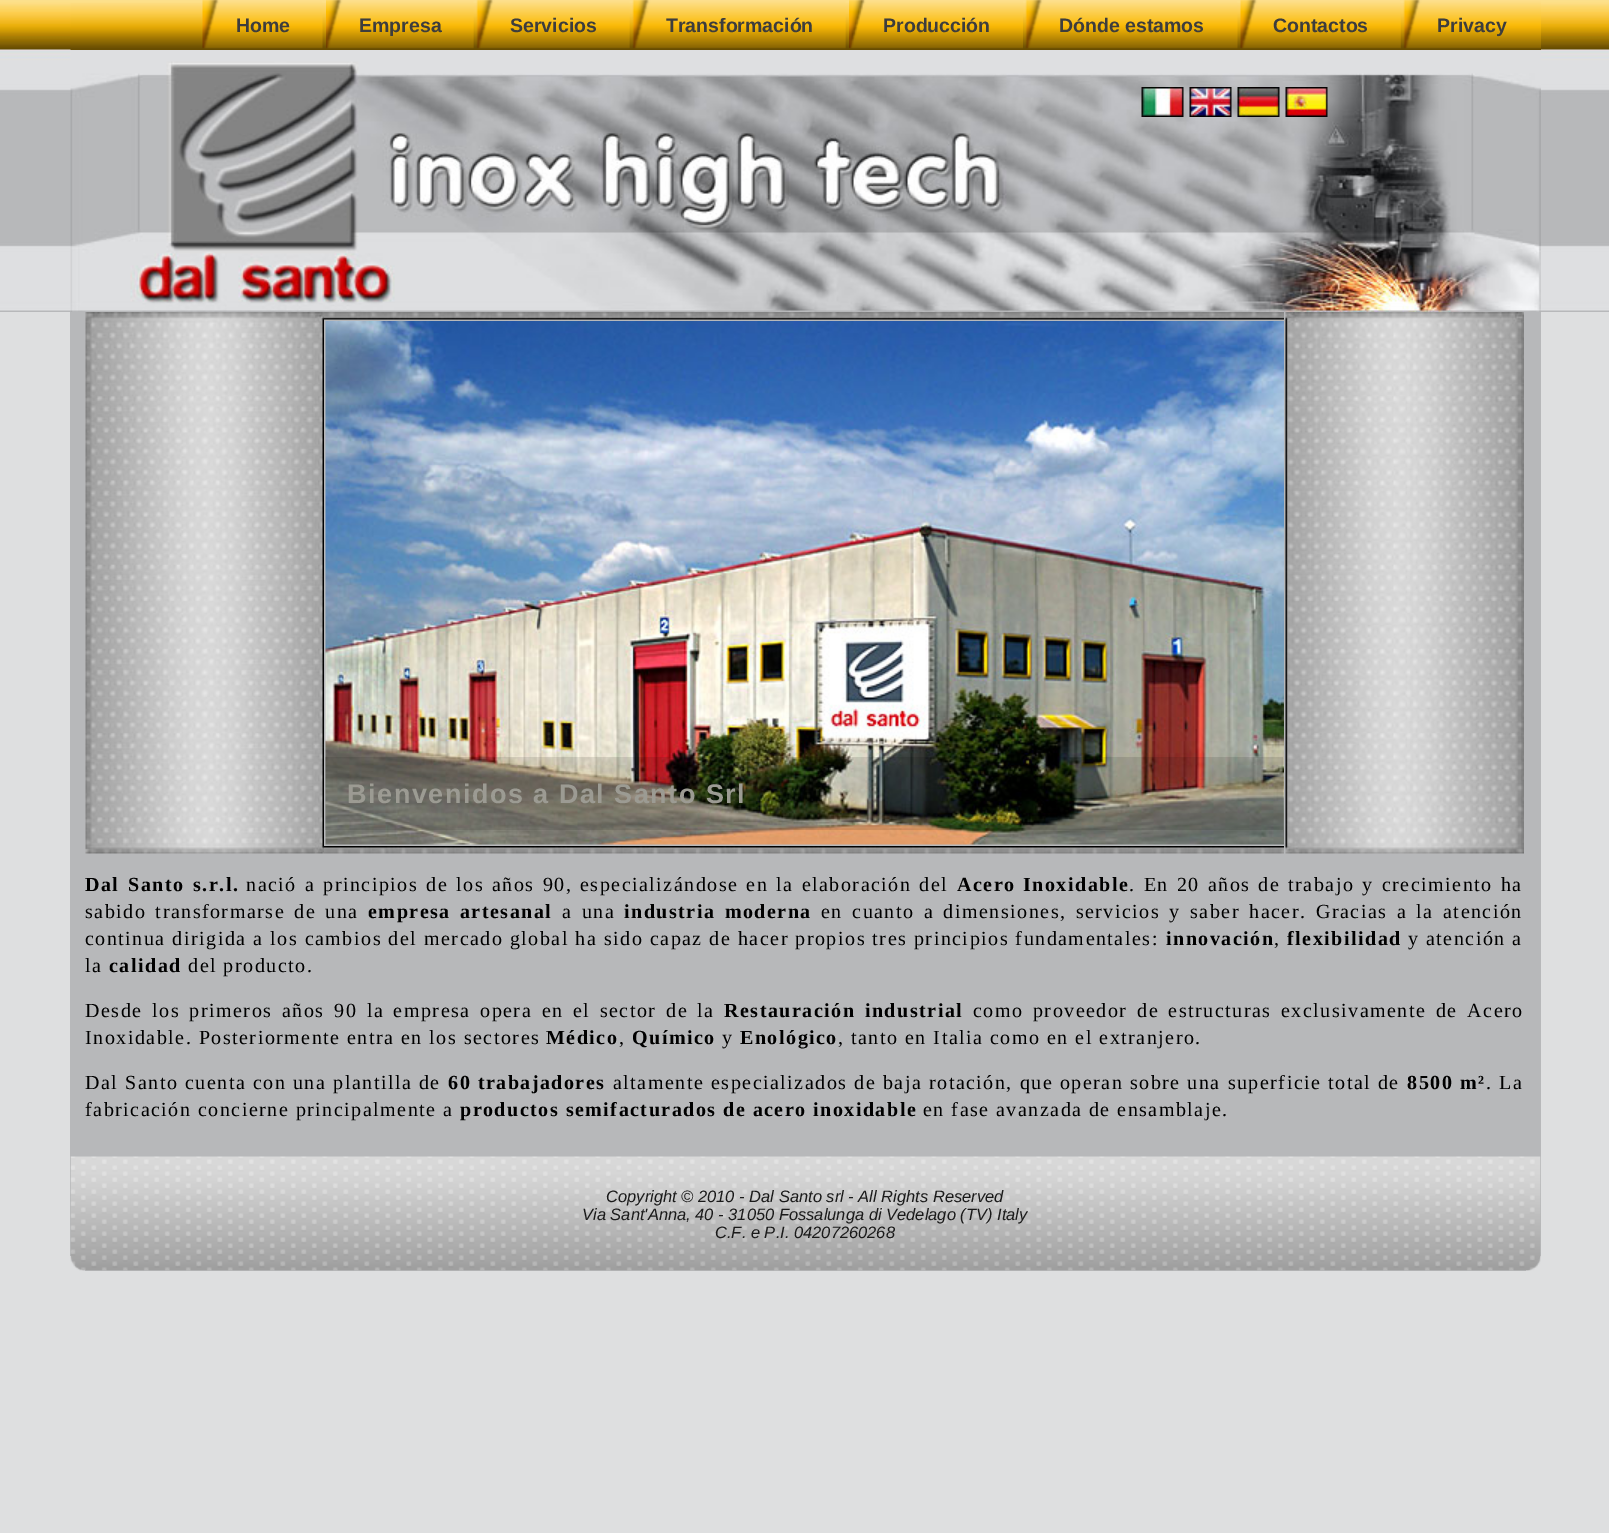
%!PS
<< /PageSize [1609 1533] /PageUsesTransparency true >> setpagedevice
/rgb { dup -16 bitshift 255 div exch dup -8 bitshift 255 and 255 div exch 255 and 255 div setrgbcolor } def
/font { [ exch dup neg 0 0 3 -1 roll 0 0 ] selectfont } def
/text { moveto show } def
/alpha { dup .setfillconstantalpha .setstrokeconstantalpha } def
/picture { 5 dict begin { /h /w /y /x /name } { exch def } forall
  gsave x y translate w h scale
  w h 8 [w 0 0 h 0 0] name (r) file false 3 colorimage grestore end } def
0 .pushpdf14devicefilter
0 1533 translate 1 -1 scale
4 setmiterlimit
/s1 { /LiberationSans-Bold 19.5 font 16#3D3D3D rgb } def
/s2 { /LiberationSans-Italic 16.5 font 16#1A1A1A rgb } def
16#DEDFE0 rgb
0 0 1609 1533 rectfill
(pic1.raw) 0 0 1609 312 picture
(pic2.raw) 70 3 1471 47 picture
(pic3.raw) 202 0 121 49 picture
s1
(Home) 236 32 text
(pic4.raw) 326 0 148 49 picture
(Empresa) 359 32 text
(pic5.raw) 476 0 154 49 picture
(Servicios) 510 32 text
(pic6.raw) 632 0 214 49 picture
(Transformación) 666 32 text
(pic7.raw) 849 0 174 49 picture
(Producción) 883 32 text
(pic8.raw) 1025 0 213 49 picture
(Dónde estamos) 1059 32 text
(pic9.raw) 1240 0 161 49 picture
(Contactos) 1273 32 text
(pic10.raw) 1403 0 138 49 picture
(Privacy) 1437 32 text
(pic11.raw) 70 50 1471 262 picture
(pic12.raw) 1141 87 43 30 picture
(pic13.raw) 1189 87 43 30 picture
(pic14.raw) 1237 87 43 30 picture
(pic15.raw) 1285 87 43 30 picture
16#B7B8BA rgb
70 312 16 944 rectfill
324 312 1217 15 rectfill
86 327 1440 830 rectfill
1526 327 15 929 rectfill
(pic16.raw) 85 312 239 542 picture
(pic17.raw) 324 312 960 8 picture
(pic18.raw) 1285 312 239 542 picture
(pic19.raw) 325 321 959 524 picture
0.11 alpha
16#000000 rgb
325 757 958 73 rectfill
/LiberationSans-Bold 27 font
1 alpha
16#9C9B93 rgb
347 803 moveto 1.5 0 (Bienvenidos a Dal Santo Srl) ashow
(pic20.raw) 324 846 960 8 picture
/LiberationSerif-Bold 20 font
16#000000 rgb
85 891 moveto 2 0 32 1.5 0 (Dal Santo s.r.l.) awidthshow
/LiberationSerif-Regular 20 font
246 891 moveto 1.5 0 32 1.5 0 (nació a principios de los años 90, especializándose en la elaboración del) awidthshow
/LiberationSerif-Bold 20 font
957 891 moveto 1 0 32 1.5 0 (Acero Inoxidable) awidthshow
/LiberationSerif-Regular 20 font
1129 891 moveto 1.5 0 32 1.5 0 (. En 20 años de trabajo y crecimiento ha) awidthshow
85 918 moveto 2.75 0 32 1.5 0 (sabido transformarse de una) awidthshow
/LiberationSerif-Bold 20 font
368 918 moveto 2.75 0 32 1.5 0 (empresa artesanal) awidthshow
/LiberationSerif-Regular 20 font
562 918 moveto 2.75 0 32 1.5 0 (a una) awidthshow
/LiberationSerif-Bold 20 font
624 918 moveto 2.75 0 32 1.5 0 (industria moderna) awidthshow
/LiberationSerif-Regular 20 font
821 918 moveto 2.75 0 32 1.5 0 (en cuanto a dimensiones, servicios y saber hacer.) awidthshow
1316 918 moveto 2.75 0 32 1.5 0 (Gracias a la atención) awidthshow
85 945 moveto 0.1 0 32 1.5 0 (continua dirigida a los cambios del mercado global ha sido capaz de hacer propios tres principios fundamentales:) awidthshow
/LiberationSerif-Bold 20 font
1166 945 moveto 1.5 0 (innovación) ashow
/LiberationSerif-Regular 20 font
1274 945 moveto 1.5 0 (,) ashow
/LiberationSerif-Bold 20 font
1287 945 moveto 1.5 0 (flexibilidad) ashow
/LiberationSerif-Regular 20 font
1408 945 moveto 1.5 0 (y atención a) ashow
85 972 moveto 1.5 0 (la) ashow
/LiberationSerif-Bold 20 font
109 972 moveto 1.5 0 (calidad) ashow
/LiberationSerif-Regular 20 font
188 972 moveto 1.5 0 (del producto.) ashow
85 1017 moveto 3 0 32 1.5 0 (Desde los primeros años 90 la empresa opera en el sector de la) awidthshow
/LiberationSerif-Bold 20 font
724 1017 moveto 3 0 32 1.5 0 (Restauración industrial) awidthshow
/LiberationSerif-Regular 20 font
973 1017 moveto 3 0 32 1.5 0 (como proveedor de estructuras exclusivamente de Acero) awidthshow
85 1044 moveto 1.5 0 (Inoxidable. Posteriormente entra en los sectores) ashow
/LiberationSerif-Bold 20 font
546 1044 moveto 1.5 0 (Médico) ashow
/LiberationSerif-Regular 20 font
619 1044 moveto 1.5 0 (,) ashow
/LiberationSerif-Bold 20 font
632 1044 moveto 1.5 0 (Químico) ashow
/LiberationSerif-Regular 20 font
722 1044 moveto 1.5 0 (y) ashow
/LiberationSerif-Bold 20 font
740 1044 moveto 1.5 0 (Enológico) ashow
/LiberationSerif-Regular 20 font
838 1044 moveto 1.5 0 (, tanto en Italia como en el extranjero.) ashow
85 1089 moveto 0.25 0 32 1.5 0 (Dal Santo cuenta con una plantilla de) awidthshow
/LiberationSerif-Bold 20 font
448 1089 moveto 1.5 0 (60 trabajadores) ashow
/LiberationSerif-Regular 20 font
613 1089 moveto 0.25 0 32 1.5 0 (altamente especializados de baja rotación, que operan sobre una superficie total de) awidthshow
/LiberationSerif-Bold 20 font
1407 1089 moveto 1.5 0 (8500 m²) ashow
/LiberationSerif-Regular 20 font
1486 1089 moveto 1.5 0 (. La) ashow
85 1116 moveto 1.5 0 (fabricación concierne principalmente a) ashow
/LiberationSerif-Bold 20 font
460 1116 moveto 1.5 0 (productos semifacturados de acero inoxidable) ashow
/LiberationSerif-Regular 20 font
923 1116 moveto 1.5 0 (en fase avanzada de ensamblaje.) ashow
(pic22.raw) 71 1256 14 15 picture
16#B7B8BA rgb
85 1270 1441 1 rectfill
(pic23.raw) 1526 1256 15 15 picture
(pic21.raw) 70 1156 1471 115 picture
s2
(Copyright © 2010 - Dal Santo srl - All Rights Reserved) 606 1202 text
(Via Sant'Anna, 40 - 31050 Fossalunga di Vedelago \(TV\) Italy) 582 1220 text
(C.F. e P.I. 04207260268) 715 1238 text
.poppdf14devicefilter showpage
